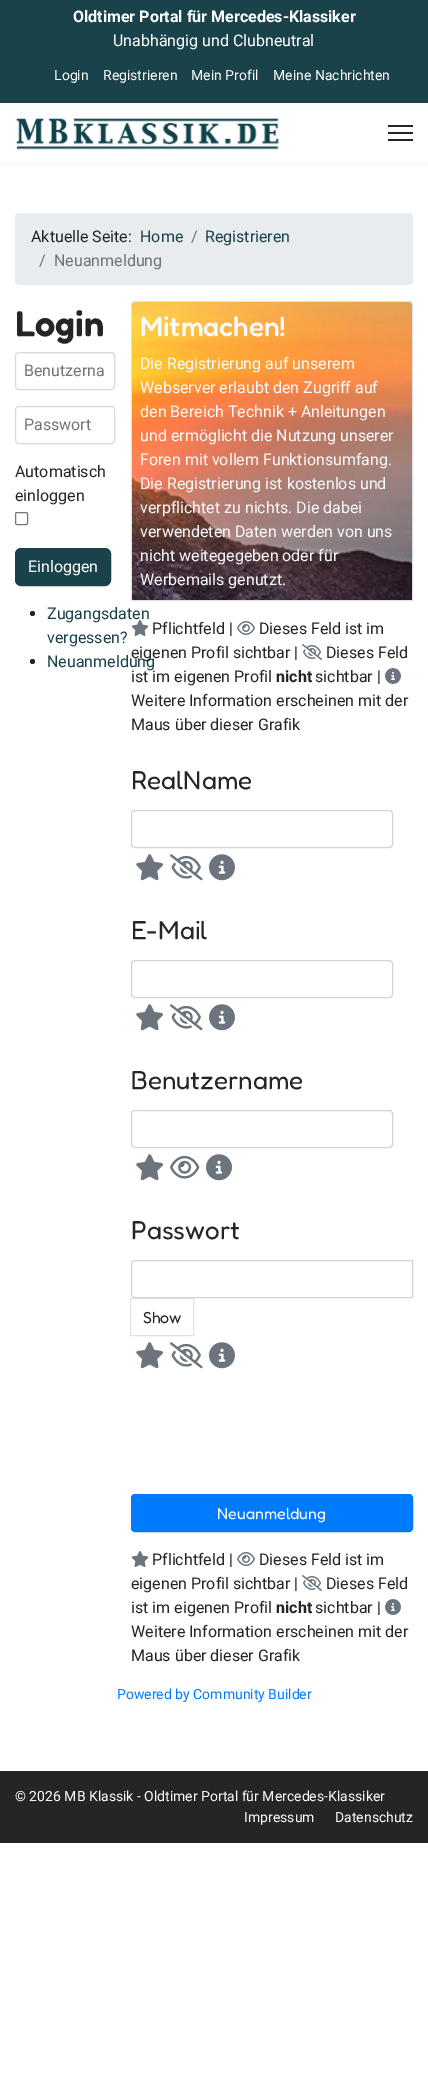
%!PS
<< /PageSize [428 2092] /PageUsesTransparency true >> setpagedevice
/rgb { dup -16 bitshift 255 div exch dup -8 bitshift 255 and 255 div exch 255 and 255 div setrgbcolor } def
/font { [ exch dup neg 0 0 3 -1 roll 0 0 ] selectfont } def
/text { moveto show } def
/alpha { dup .setfillconstantalpha .setstrokeconstantalpha } def
/circle { newpath 0 360 arc closepath } def
/roundrect { 5 dict begin { /r /h /w /y /x } { exch def } forall
  x r add y moveto x w add y 2 copy h add r arct x w add y h add x 1 index r arct
  x y h add x y r arct x y 2 copy exch w add exch r arct closepath end } def
/shadow { 12 dict begin { /a /b /q /h /w /y /x } { exch def } forall gsave /was 0 def
  9 -2 -9 { dup b mul 4 div /e exch def 1 sub .425 mul 2.718 exch exp 1 add a .99 .min exch div /now exch def
    1 1 now sub 1 was sub div sub alpha /was now def
    w h .min e 2 mul add 0 gt { x e sub y e sub w e 2 mul add h e 2 mul add
      q e add b .6 mul add w h .min 2 div e add .min 0 .max roundrect fill } if } for grestore end } def
/picture { 5 dict begin { /h /w /y /x /name } { exch def } forall
  gsave x y translate w h scale
  w h 8 [w 0 0 h 0 0] name (r) file false 3 colorimage grestore end } def
0 .pushpdf14devicefilter
0 2092 translate 1 -1 scale
4 setmiterlimit
/s1 { /Roboto-Bold 16 font 16#FFFFFF rgb } def
/s2 { /Roboto-Regular 16 font 16#FFFFFF rgb } def
/s3 { /Roboto-Regular 14 font 16#FFFFFF rgb } def
/s4 { /Roboto-Regular 16 font 16#252525 rgb } def
/s5 { /Roboto-Regular 16 font 16#1A424A rgb } def
/s6 { /Roboto-Regular 16 font 16#6C757D rgb } def
/s7 { /Fredoka-SemiBold 36 font 16#252525 rgb } def
/s8 { /Roboto-Regular 16 font 16#757575 rgb } def
/s9 { /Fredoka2-Light 28 font 16#F8F9FA rgb } def
/s10 { /Roboto-Regular 16 font 16#F8F9FA rgb } def
/s11 { /Roboto-Bold 16 font 16#252525 rgb } def
/s12 { /Fredoka-Light 26 font 16#252525 rgb } def
/s13 { /Fredoka-Light 16 font 16#252525 rgb } def
/s14 { /Fredoka-Light 16 font 16#FFFFFF rgb } def
/s15 { /Roboto-Regular 14 font 16#007BFF rgb } def
16#FFFFFF rgb
0 0 428 2092 rectfill
16#1A424A rgb
0 0 428 103 rectfill
s1
(Oldtimer Portal für Mercedes-Klassiker) 73 22 text
s2
(Unabhängig und Clubneutral) 113 46 text
s3
(Login) 54 80 text
(Registrieren) 103 80 text
(Mein Profil) 191 80 text
(Meine Nachrichten) 273 80 text
gsave
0 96 moveto 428 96 lineto 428 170 lineto 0 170 lineto closepath 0 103 moveto 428 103 lineto 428 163 lineto 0 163 lineto closepath eoclip newpath
16#000000 rgb
0 103 428 60 0 2 0.1 shadow
grestore
(pic1.raw) 16 118 263 32 picture
16#252525 rgb
388 125 25 2 rectfill
388 132 25 2 rectfill
388 139 25 2 rectfill
16#E9ECEF rgb
15 213 398 72 4 roundrect fill
s4
(Aktuelle Seite:) 31 242 text
s5
(Home) 140 242 text
s6
(/) 191 242 text
s5
(Registrieren) 205 242 text
s6
(/) 39 266 text
(Neuanmeldung) 54 266 text
s7
(Login) 15 336 text
16#D9D9D9 rgb
15.5 352.5 99 37 3.5 roundrect stroke
s8
(Benutzerna) 24 376 text
16#D9D9D9 rgb
15.5 406.5 99 37 3.5 roundrect stroke
s8
(Passwort) 24 430 text
s4
(Automatisch) 15 477 text
(einloggen) 15 501 text
16#767676 rgb
15.5 512.5 12 12 1.5 roundrect stroke
16#1A424A rgb
15.5 548.5 95 37 5.5 roundrect gsave fill grestore
stroke
s2
(Einloggen) 28 572 text
16#252525 rgb
32.5 613.5 2.5 circle fill
s5
(Zugangsdaten) 47 619 text
(vergessen?) 47 643 text
16#252525 rgb
32.5 661.5 2.5 circle fill
s5
(Neuanmeldung) 47 667 text
16#DEE2E6 rgb
135 301.5 moveto 409 301.5 lineto 411 301.5 412.5 303 412.5 305 curveto 412.5 600.5 lineto 131.5 600.5 lineto 131.5 305 lineto 131.5 303 133 301.5 135 301.5 curveto closepath stroke
(pic2.raw) 132 302 280 298 picture
s9
(Mitmachen!) 140 336 text
s10
(Die Registrierung auf unserem) 140 369 text
(Webserver erlaubt den Zugriff auf) 140 393 text
(den Bereich Technik + Anleitungen) 140 417 text
(und ermöglicht die Nutzung unserer) 140 441 text
(Foren mit vollem Funktionsumfang.) 140 465 text
(Die Registrierung ist kostenlos und) 140 489 text
(verpflichtet zu nichts. Die dabei) 140 513 text
(verwendeten Daten werden von uns) 140 537 text
(nicht weitegegeben oder für) 140 561 text
(Werbemails genutzt.) 140 585 text
(pic3.raw) 131 620 18 16 picture
s4
(Pflichtfeld |) 152 634 text
(pic4.raw) 237 621 18 14 picture
(Dieses Feld ist im) 259 634 text
(eigenen Profil sichtbar |) 131 658 text
(pic5.raw) 302 644 20 16 picture
(Dieses Feld) 326 658 text
(ist im eigenen Profil) 131 682 text
s11
(nicht) 276 682 text
s4
(sichtbar |) 315 682 text
(pic6.raw) 385 668 16 16 picture
(Weitere Information erscheinen mit der) 131 706 text
(Maus über dieser Grafik) 131 730 text
s12
(RealName) 131 789 text
16#CED4DA rgb
131.5 810.5 261 37 3.5 roundrect stroke
(pic7.raw) 136 854 27 27 picture
(pic8.raw) 170 854 33 27 picture
(pic9.raw) 209 854 26 27 picture
s12
(E-Mail) 131 939 text
16#CED4DA rgb
131.5 960.5 261 37 3.5 roundrect stroke
(pic7.raw) 136 1004 27 27 picture
(pic8.raw) 170 1004 33 27 picture
(pic9.raw) 209 1004 26 27 picture
s12
(Benutzername) 131 1089 text
16#CED4DA rgb
131.5 1110.5 261 37 3.5 roundrect stroke
(pic7.raw) 136 1154 27 27 picture
(pic10.raw) 170 1155 30 24 picture
(pic9.raw) 206 1154 26 27 picture
s12
(Passwort) 131 1239 text
16#CED4DA rgb
135 1260.5 moveto 412.5 1260.5 lineto 412.5 1297.5 lineto 135 1297.5 lineto 133 1297.5 131.5 1296 131.5 1294 curveto 131.5 1264 lineto 131.5 1262 133 1260.5 135 1260.5 curveto closepath stroke
16#DEE2E6 rgb
130.5 1298.5 63 37 rectstroke
s13
(Show) 143 1323 text
(pic7.raw) 136 1342 27 27 picture
(pic8.raw) 170 1342 33 27 picture
(pic9.raw) 209 1342 26 27 picture
16#007BFF rgb
131.5 1494.5 281 37 3.5 roundrect gsave fill grestore
stroke
s14
(Neuanmeldung) 217 1519 text
(pic3.raw) 131 1551 18 16 picture
s4
(Pflichtfeld |) 152 1565 text
(pic4.raw) 237 1552 18 14 picture
(Dieses Feld ist im) 259 1565 text
(eigenen Profil sichtbar |) 131 1589 text
(pic5.raw) 302 1575 20 16 picture
(Dieses Feld) 326 1589 text
(ist im eigenen Profil) 131 1613 text
s11
(nicht) 276 1613 text
s4
(sichtbar |) 315 1613 text
(pic6.raw) 385 1599 16 16 picture
(Weitere Information erscheinen mit der) 131 1637 text
(Maus über dieser Grafik) 131 1661 text
s15
(Powered by Community Builder) 117 1699 text
16#252525 rgb
0 1771 428 72 rectfill
s3
(© 2026 MB Klassik - Oldtimer Portal für Mercedes-Klassiker) 15 1801 text
(Impressum) 244 1822 text
(Datenschutz) 335 1822 text
.poppdf14devicefilter showpage
